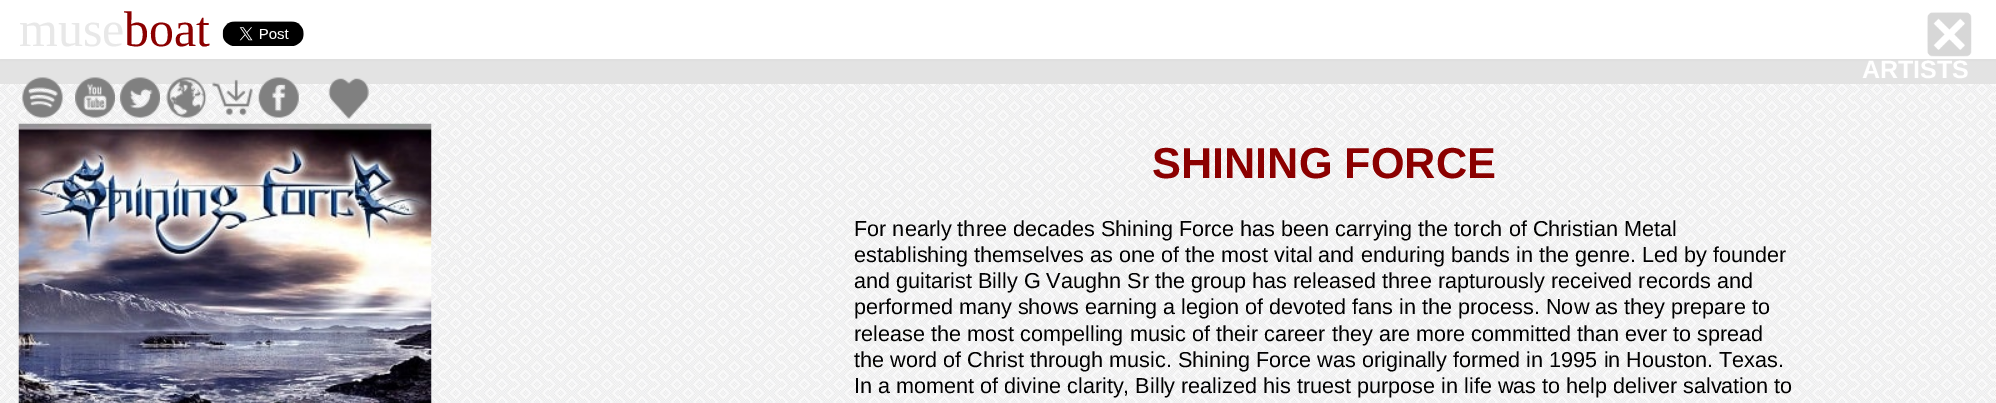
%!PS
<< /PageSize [1996 403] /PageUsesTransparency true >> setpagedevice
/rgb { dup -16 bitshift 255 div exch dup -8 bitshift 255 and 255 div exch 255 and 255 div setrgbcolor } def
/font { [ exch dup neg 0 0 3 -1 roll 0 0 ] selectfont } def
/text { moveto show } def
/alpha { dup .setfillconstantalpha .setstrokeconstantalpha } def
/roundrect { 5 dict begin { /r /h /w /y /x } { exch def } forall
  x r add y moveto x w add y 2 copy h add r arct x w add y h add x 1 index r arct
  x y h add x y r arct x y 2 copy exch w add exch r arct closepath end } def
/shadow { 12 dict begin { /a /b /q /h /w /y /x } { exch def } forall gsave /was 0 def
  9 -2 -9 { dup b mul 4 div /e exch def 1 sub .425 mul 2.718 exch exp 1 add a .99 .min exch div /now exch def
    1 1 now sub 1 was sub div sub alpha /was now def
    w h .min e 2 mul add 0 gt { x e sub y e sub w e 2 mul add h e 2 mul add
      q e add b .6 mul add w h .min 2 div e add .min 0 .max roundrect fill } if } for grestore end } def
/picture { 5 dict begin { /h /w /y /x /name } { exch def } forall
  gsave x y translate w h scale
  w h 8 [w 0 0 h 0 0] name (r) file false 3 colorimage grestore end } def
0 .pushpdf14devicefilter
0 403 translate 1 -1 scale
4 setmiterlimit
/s1 { /LiberationSerif-Regular 50 font 16#E8E8E8 rgb } def
/s2 { /LiberationSerif-Regular 50 font 16#8B0000 rgb } def
/s3 { /LiberationSans-Bold 43.25 font 16#8B0000 rgb } def
/s4 { /LiberationSans-Regular 21.65 font 16#000000 rgb } def
/s5 { /LiberationSans-Bold 25 font 16#FFFFFF rgb } def
16#FFFFFF rgb
0 0 1996 403 rectfill
(pic1.raw) 0 84 1996 319 picture
16#E3E3E3 rgb
0 59 1996 25 rectfill
16#DDDDDD rgb
0 1 1996 59 0 2 1 shadow
16#FFFFFF rgb
0 0 1996 59 rectfill
s1
(muse) 19 46 text
s2
(boat) 124 46 text
(pic2.raw) 222 21 82 25 picture
(pic3.raw) 1927 12 45 45 picture
(pic4.raw) 22 77 41 41 picture
(pic5.raw) 75 77 40 41 picture
(pic6.raw) 120 77 40 41 picture
(pic7.raw) 166 77 41 41 picture
(pic8.raw) 212 79 41 37 picture
(pic9.raw) 258 77 41 41 picture
(pic10.raw) 328 78 41 41 picture
(pic11.raw) 18 123 414 280 picture
s3
(SHINING FORCE) 1152 178 text
s4
(For nearly three decades Shining Force has been carrying the torch of Christian Metal) 854 236 text
(establishing themselves as one of the most vital and enduring bands in the genre. Led by founder) 854 262 text
(and guitarist Billy G Vaughn Sr the group has released three rapturously received records and) 854 288 text
(performed many shows earning a legion of devoted fans in the process. Now as they prepare to) 854 314 text
(release the most compelling music of their career they are more committed than ever to spread) 854 341 text
(the word of Christ through music. Shining Force was originally formed in 1995 in Houston. Texas.) 854 367 text
(In a moment of divine clarity, Billy realized his truest purpose in life was to help deliver salvation to) 854 393 text
s5
(ARTISTS) 1862 78 text
.poppdf14devicefilter showpage
